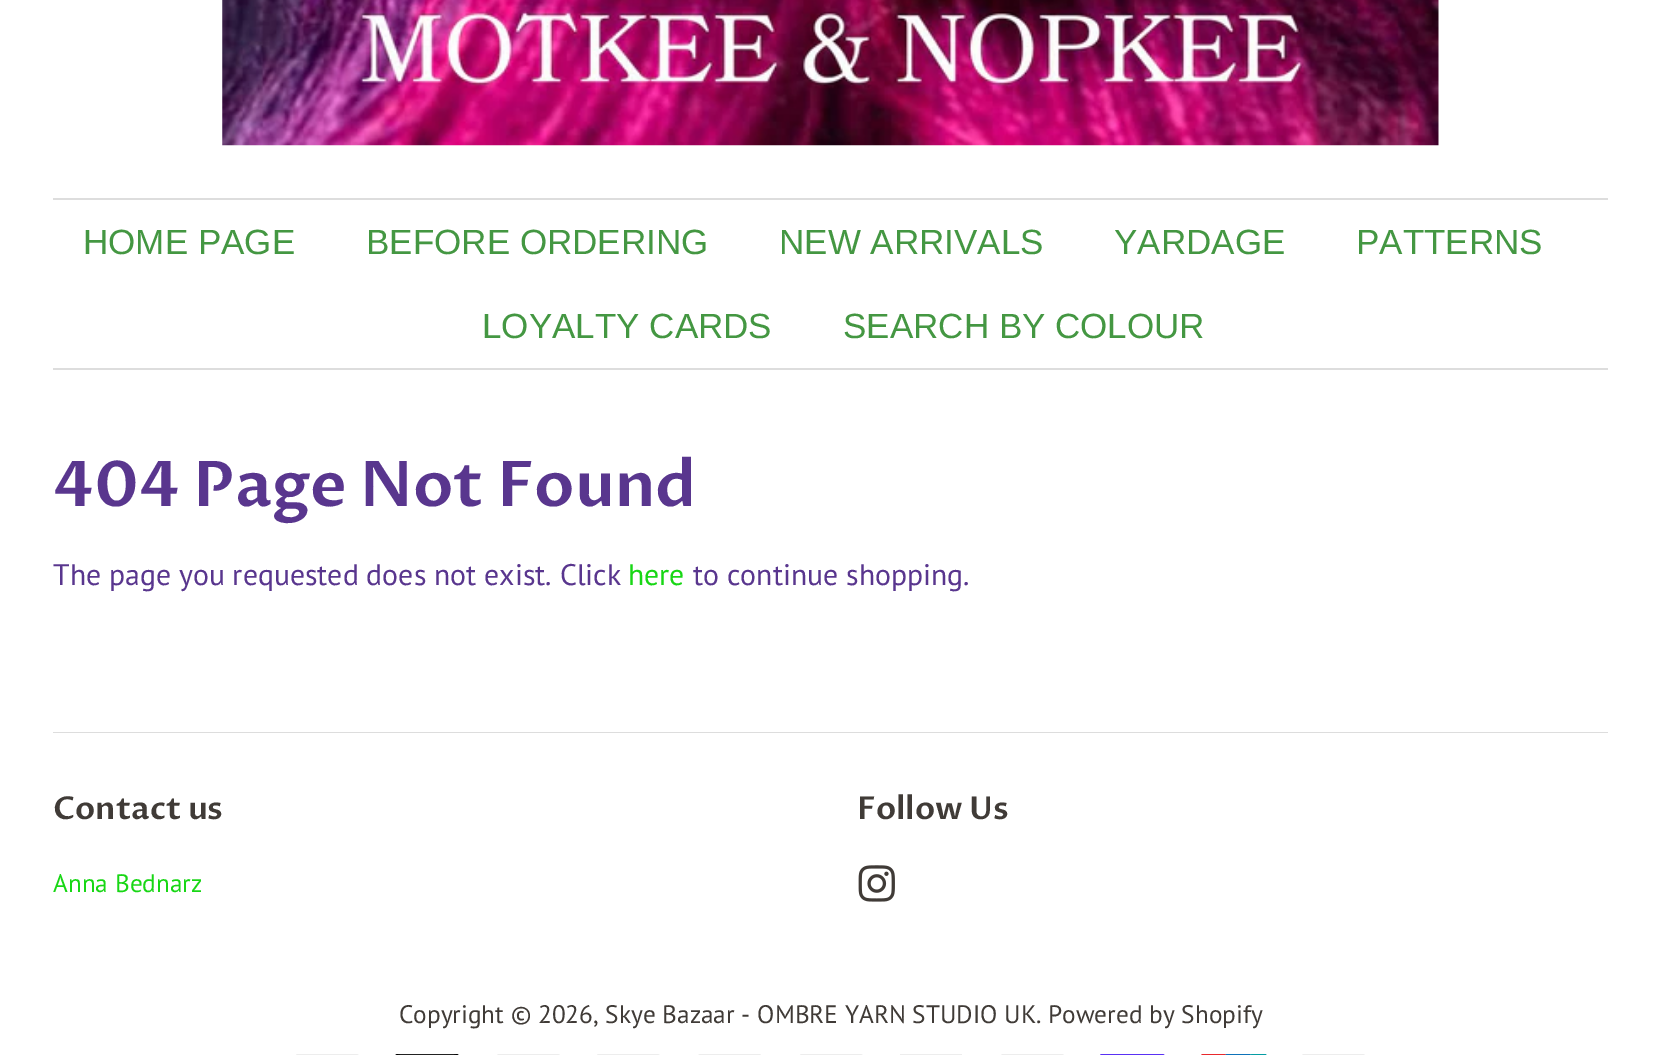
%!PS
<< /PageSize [1660 1055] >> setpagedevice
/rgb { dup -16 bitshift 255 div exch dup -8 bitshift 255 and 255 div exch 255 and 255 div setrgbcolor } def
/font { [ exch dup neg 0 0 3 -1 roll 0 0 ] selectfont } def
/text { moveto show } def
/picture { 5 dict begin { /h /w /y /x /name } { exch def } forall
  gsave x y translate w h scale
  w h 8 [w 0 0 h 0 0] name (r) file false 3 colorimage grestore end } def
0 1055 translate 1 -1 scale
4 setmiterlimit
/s1 { /Arimo-Regular 35 font 16#449742 rgb } def
/s2 { /ProzaLibre-SemiBold 63 font 16#59368E rgb } def
/s3 { /PTSans-Regular 29.75 font 16#59368E rgb } def
/s4 { /PTSans-Regular 29.75 font 16#18D715 rgb } def
/s5 { /ProzaLibre-SemiBold 31.5 font 16#403B37 rgb } def
/s6 { /PTSans-Regular 25.3 font 16#18D715 rgb } def
/s7 { /PTSans-Regular 25.3 font 16#403B37 rgb } def
16#FFFFFF rgb
0 0 1660 1055 rectfill
(pic1.raw) 222 0 1217 146 picture
16#DDDDDD rgb
53 198 1555 2 rectfill
53 368 1555 2 rectfill
s1
(HOME PAGE) 83 254 text
(BEFORE ORDERING) 366 254 text
(NEW ARRIVALS) 779 254 text
(YARDAGE) 1114 254 text
(PATTERNS) 1356 254 text
(LOYALTY CARDS) 482 338 text
(SEARCH BY COLOUR) 843 338 text
s2
(404 Page Not Found) 53 506 text
s3
(The page you requested does not exist. Click) 53 585 text
s4
(here) 628 585 text
s3
(to continue shopping.) 693 585 text
16#DDDDDD rgb
53 732 1555 1 rectfill
s5
(Contact us) 53 819 text
s6
(Anna Bednarz) 53 892 text
s5
(Follow Us) 857 819 text
(pic2.raw) 858 865 37 37 picture
s7
(Copyright © 2026, Skye Bazaar - OMBRE YARN STUDIO UK) 399 1023 text
(. Powered by Shopify) 1036 1023 text
(pic3.raw) 296 1054 63 1 picture
(pic4.raw) 395 1054 64 1 picture
(pic5.raw) 497 1054 63 1 picture
(pic3.raw) 597 1054 63 1 picture
(pic6.raw) 698 1054 63 1 picture
(pic3.raw) 800 1054 63 1 picture
16#EDEDED rgb
900 1054 62 1 rectfill
(pic5.raw) 1001 1054 63 1 picture
(pic7.raw) 1100 1054 65 1 picture
(pic8.raw) 1201 1054 66 1 picture
(pic5.raw) 1302 1054 63 1 picture
showpage
